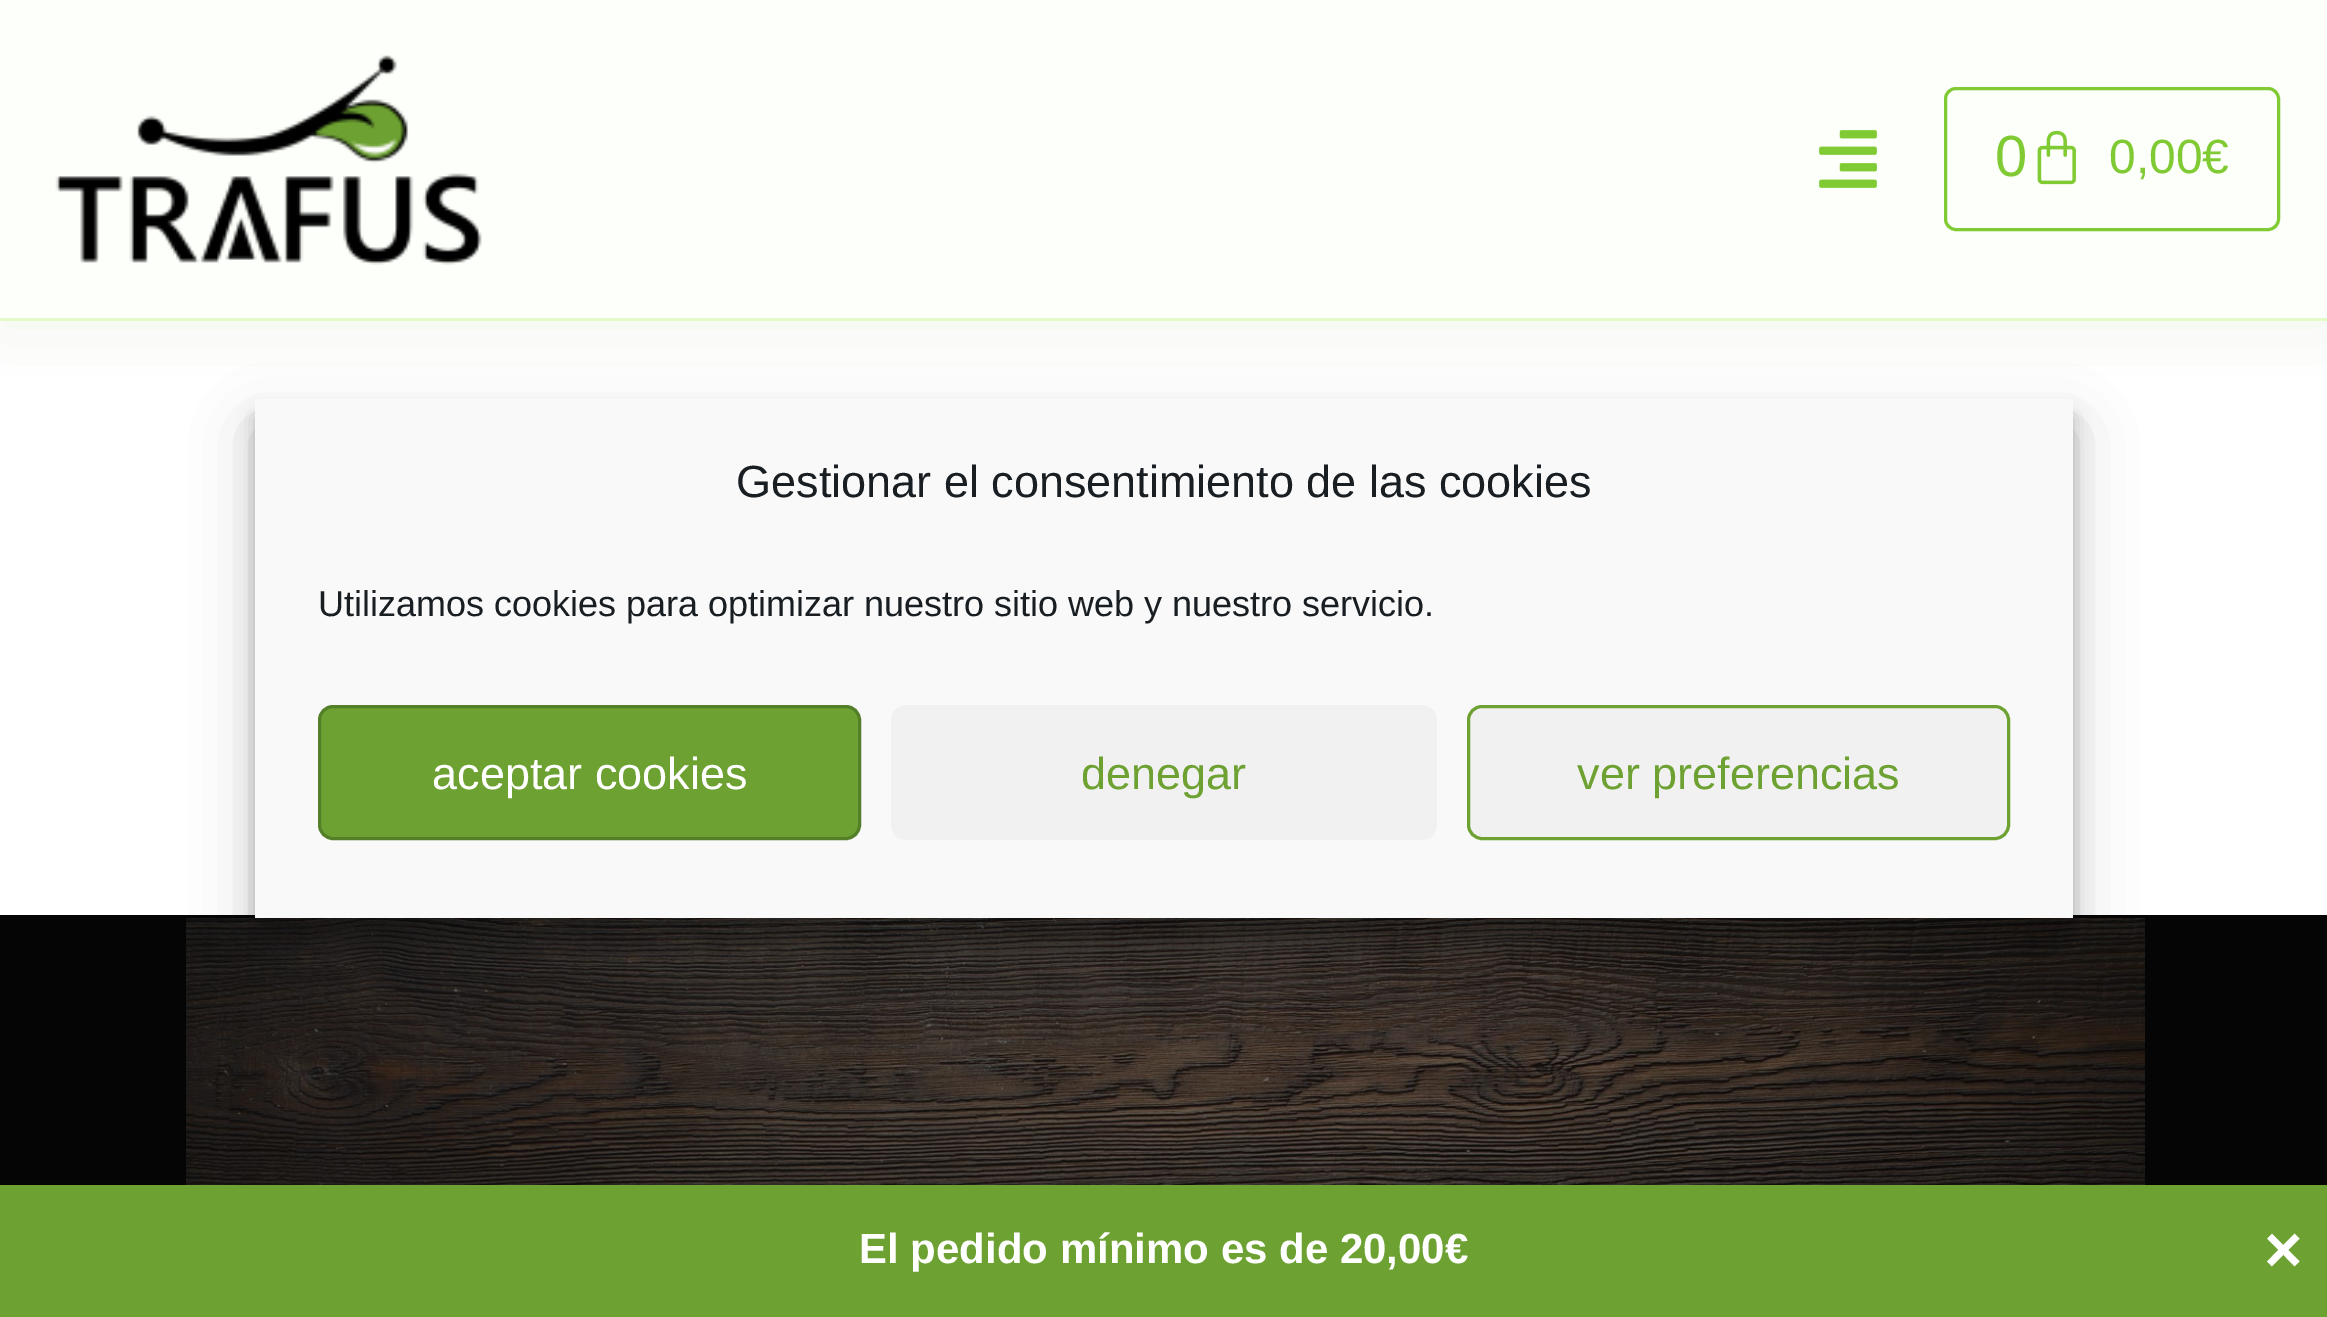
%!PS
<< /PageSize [2327 1317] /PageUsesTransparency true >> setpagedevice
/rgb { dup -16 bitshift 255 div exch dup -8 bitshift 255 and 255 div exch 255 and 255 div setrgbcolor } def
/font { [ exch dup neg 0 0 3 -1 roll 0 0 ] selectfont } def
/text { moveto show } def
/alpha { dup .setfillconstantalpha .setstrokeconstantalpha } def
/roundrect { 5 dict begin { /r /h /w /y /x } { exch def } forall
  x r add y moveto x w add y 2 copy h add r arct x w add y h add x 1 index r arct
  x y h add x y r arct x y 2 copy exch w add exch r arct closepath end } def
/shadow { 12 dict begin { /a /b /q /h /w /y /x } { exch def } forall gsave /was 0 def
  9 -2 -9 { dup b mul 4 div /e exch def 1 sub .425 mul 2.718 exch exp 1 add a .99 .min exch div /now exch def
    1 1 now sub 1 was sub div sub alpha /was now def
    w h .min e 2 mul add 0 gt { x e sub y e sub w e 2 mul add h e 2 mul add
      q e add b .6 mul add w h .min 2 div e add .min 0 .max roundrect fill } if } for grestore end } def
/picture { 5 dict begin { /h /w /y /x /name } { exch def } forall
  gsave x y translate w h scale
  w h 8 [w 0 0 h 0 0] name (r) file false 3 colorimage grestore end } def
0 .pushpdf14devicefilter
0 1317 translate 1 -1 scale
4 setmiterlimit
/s1 { /LiberationSans-Regular 58 font 16#80CB33 rgb } def
/s2 { /LiberationSans-Regular 48 font 16#80CB33 rgb } def
/s3 { /LiberationSans-Regular 45 font 16#191E23 rgb } def
/s4 { /LiberationSans-Regular 36 font 16#191E23 rgb } def
/s5 { /LiberationSans-Regular 45 font 16#FFFFFF rgb } def
/s6 { /LiberationSans-Regular 45 font 16#6DA132 rgb } def
/s7 { /LiberationSans-Bold 42 font 16#FFFFFF rgb } def
/s8 { /LiberationSans-Bold 66 font 16#FFFFFF rgb } def
16#FFFFFF rgb
0 0 2327 1317 rectfill
16#FCFFFA rgb
0 0 2327 318 rectfill
gsave
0 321 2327 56 rectclip
16#CFDFBA rgb
0 0 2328 321 0 36 0.34 shadow
grestore
16#E2FBC8 rgb
0 318 2327 3 rectfill
(pic1.raw) 55 55 427 210 picture
(pic2.raw) 1819 130 58 58 picture
16#80CB33 rgb
3 setlinewidth
1945.5 88.5 333 141 10.5 roundrect stroke
s1
(0) 1995 176 text
(pic3.raw) 2037 130 39 55 picture
s2
(0,00€) 2109 173 text
16#050505 rgb
0 915 2327 270 rectfill
(pic4.raw) 186 918 1959 267 picture
16#000000 rgb
255 417 1818 519 0 9 0.23 shadow
255 429 1818 519 0 30 0.19 shadow
16#F9F9F9 rgb
255 399 1818 519 rectfill
s3
(Gestionar el consentimiento de las cookies) 736 497 text
s4
(Utilizamos cookies para optimizar nuestro sitio web y nuestro servicio.) 318 616 text
16#6DA132 rgb
319.5 706.5 540 132 13.5 roundrect gsave fill grestore
16#527F27 rgb
stroke
s5
(aceptar cookies) 432 789 text
16#F1F1F1 rgb
891 705 546 135 15 roundrect fill
s6
(denegar) 1081 789 text
16#F1F1F1 rgb
1468.5 706.5 540 132 13.5 roundrect gsave fill grestore
16#6DA132 rgb
stroke
(ver preferencias) 1577 789 text
0 1185 2327 132 rectfill
s7
(El pedido mínimo es de 20,00€) 859 1263 text
s8
(×) 2264 1272 text
.poppdf14devicefilter showpage
